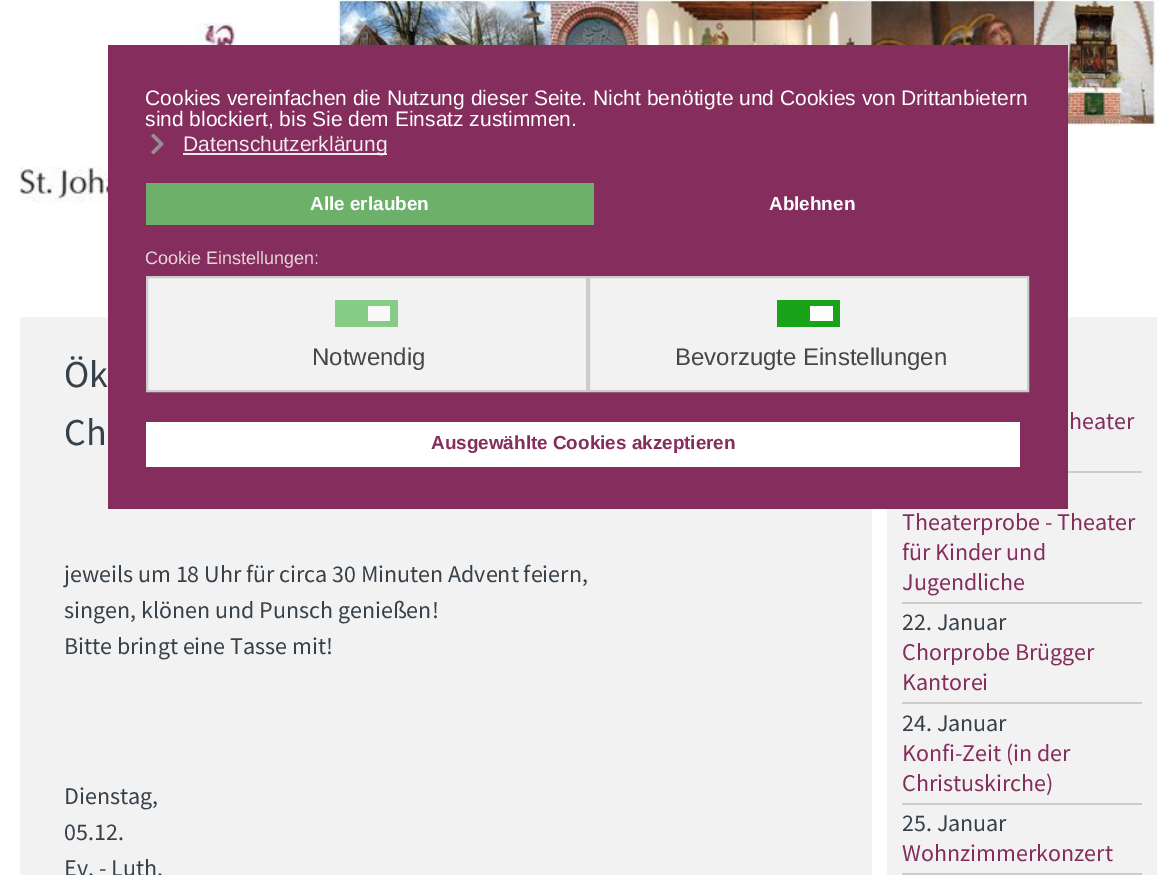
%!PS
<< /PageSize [1174 875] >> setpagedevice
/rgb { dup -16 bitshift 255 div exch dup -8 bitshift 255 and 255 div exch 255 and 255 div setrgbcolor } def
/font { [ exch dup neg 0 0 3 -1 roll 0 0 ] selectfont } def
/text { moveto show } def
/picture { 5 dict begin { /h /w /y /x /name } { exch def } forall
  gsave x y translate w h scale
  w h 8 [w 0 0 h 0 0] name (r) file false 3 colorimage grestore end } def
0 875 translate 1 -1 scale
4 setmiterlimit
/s1 { /LiberationSans-Regular 21 font 16#FFFFFF rgb } def
/s2 { /LiberationSans-Regular 21 font 16#F3EAEF rgb } def
/s3 { /LiberationSans-Bold 18.9 font 16#FFFFFF rgb } def
/s4 { /LiberationSans-Regular 18 font 16#E7D5DE rgb } def
/s5 { /LiberationSans-Regular 24 font 16#464646 rgb } def
/s6 { /LiberationSans-Bold 18.9 font 16#852D5C rgb } def
/s7 { /SourceSansPro-Regular 38 font 16#374149 rgb } def
/s8 { /SourceSansPro-Regular 24 font 16#374149 rgb } def
/s9 { /SourceSansPro-Regular 24 font 16#852D5C rgb } def
16#FFFFFF rgb
0 0 1174 875 rectfill
(pic2.raw) 19 22 301 263 picture
(pic3.raw) 337 0 820 126 picture
16#F2F2F2 rgb
20 317 852 558 rectfill
887 317 270 558 rectfill
16#852D5C rgb
108 45 960 464 rectfill
s1
(Cookies vereinfachen die Nutzung dieser Seite. Nicht benötigte und Cookies von Drittanbietern) 145 105 text
(sind blockiert, bis Sie dem Einsatz zustimmen.) 145 126 text
(pic1.raw) 151 133 13 22 picture
16#F3EAEF rgb
183 153 204 2 rectfill
(Datenschutzerklärung) 183 151 text
16#6DB06A rgb
146 183 448 42 rectfill
s3
(Alle erlauben) 310 210 text
(Ablehnen) 769 210 text
s4
(Cookie Einstellungen:) 145 264 text
16#F2F2F2 rgb
147 277 moveto 587 277 lineto 587 391 lineto 147 391 lineto closepath gsave fill grestore
16#CCCCCC rgb
2 setlinewidth
stroke
16#86CB86 rgb
335 300 63 27 rectfill
16#F9F9F9 rgb
368 306 22 15 rectfill
s5
(Notwendig) 312 365 text
16#F2F2F2 rgb
589 277 moveto 1028 277 lineto 1028 391 lineto 589 391 lineto closepath gsave fill grestore
16#CCCCCC rgb
stroke
16#19A319 rgb
777 300 63 27 rectfill
16#FFFFFF rgb
810 306 23 15 rectfill
s5
(Bevorzugte Einstellungen) 675 365 text
16#FFFFFF rgb
146 422 874 45 rectfill
s6
(Ausgewählte Cookies akzeptieren) 431 449 text
s7
(Ök) 64 387 text
(Ch) 64 445 text
s8
(jeweils um 18 Uhr für circa 30 Minuten Advent feiern,) 64 582 text
(singen, klönen und Punsch genießen!) 64 618 text
(Bitte bringt eine Tasse mit!) 64 654 text
(Dienstag,) 64 804 text
(05.12.) 64 840 text
(Ev. - Luth.) 64 876 text
16#CCCCCC rgb
1068 471 74 2 rectfill
s9
(heater) 1069 429 text
16#CCCCCC rgb
902 602 240 2 rectfill
s9
(Theaterprobe - Theater) 902 530 text
(für Kinder und) 902 560 text
(Jugendliche) 902 590 text
16#CCCCCC rgb
902 702 240 2 rectfill
s8
(22. Januar) 902 630 text
s9
(Chorprobe Brügger) 902 660 text
(Kantorei) 902 690 text
16#CCCCCC rgb
902 803 240 2 rectfill
s8
(24. Januar) 902 731 text
s9
(Konfi-Zeit \(in der) 902 761 text
(Christuskirche\)) 902 791 text
16#CCCCCC rgb
902 873 240 2 rectfill
s8
(25. Januar) 902 831 text
s9
(Wohnzimmerkonzert) 902 861 text
showpage
